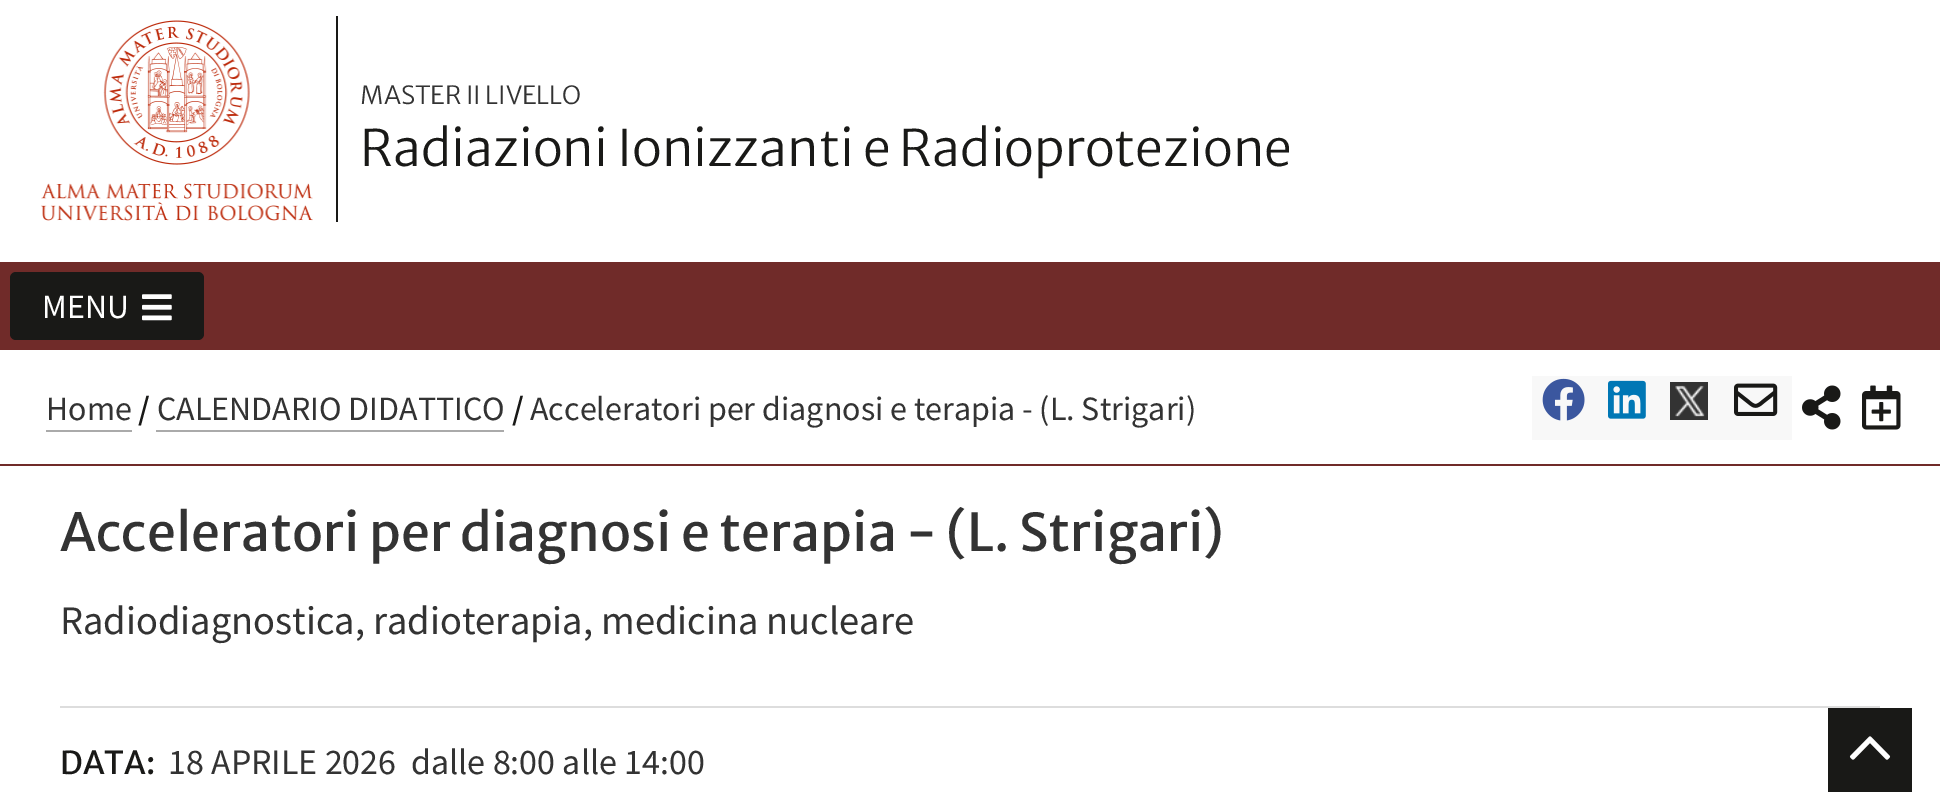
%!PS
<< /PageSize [1940 805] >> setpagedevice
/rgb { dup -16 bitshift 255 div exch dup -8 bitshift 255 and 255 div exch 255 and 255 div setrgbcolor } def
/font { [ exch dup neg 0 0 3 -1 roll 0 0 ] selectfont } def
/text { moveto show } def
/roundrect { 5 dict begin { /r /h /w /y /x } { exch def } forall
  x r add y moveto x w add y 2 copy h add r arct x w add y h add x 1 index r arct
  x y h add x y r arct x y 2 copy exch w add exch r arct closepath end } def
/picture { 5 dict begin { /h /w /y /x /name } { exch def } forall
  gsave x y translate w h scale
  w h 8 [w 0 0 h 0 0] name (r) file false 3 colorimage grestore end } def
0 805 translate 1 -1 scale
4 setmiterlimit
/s1 { /MerriweatherSans-Light 25 font 16#333333 rgb } def
/s2 { /MerriweatherSans-Light 50 font 16#191917 rgb } def
/s3 { /SourceSansPro-Regular 34 font 16#FFFFFF rgb } def
/s4 { /SourceSansPro-Regular 34 font 16#333333 rgb } def
/s5 { /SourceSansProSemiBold-SemiBold 34 font 16#191917 rgb } def
/s6 { /MerriweatherSans-Regular 52 font 16#333333 rgb } def
/s7 { /SourceSansPro-Regular 40.5 font 16#333333 rgb } def
/s8 { /MerriweatherSans-Regular 31.5 font 16#191917 rgb } def
/s9 { /SourceSansPro-Regular 36 font 16#333333 rgb } def
16#FFFFFF rgb
0 0 1940 805 rectfill
(pic1.raw) 41 20 272 201 picture
16#191917 rgb
336 16 2 206 rectfill
s1
(MASTER II LIVELLO) 360 104 text
s2
(Radiazioni Ionizzanti e Radioprotezione) 360 166 text
16#702B29 rgb
0 262 1940 88 rectfill
16#191917 rgb
10 272 194 68 6 roundrect fill
s3
(MENU) 42 318 text
(pic2.raw) 142 294 30 27 picture
16#702B29 rgb
0 464 1940 2 rectfill
s4
(Home) 46 420 text
16#AAAAAA rgb
46 430 86 2 rectfill
s5
(/) 138 420 text
s4
(CALENDARIO DIDATTICO) 157 420 text
16#AAAAAA rgb
156 430 348 2 rectfill
s5
(/) 512 420 text
s4
(Acceleratori per diagnosi e terapia - \(L. Strigari\)) 530 420 text
16#F8F8F8 rgb
1532 376 260 64 rectfill
(pic3.raw) 1542 378 43 43 picture
(pic4.raw) 1608 380 38 39 picture
16#333333 rgb
1670 382 38 38 rectfill
(pic5.raw) 1675 385 30 32 picture
(pic6.raw) 1734 383 44 33 picture
(pic7.raw) 1802 385 39 45 picture
(pic8.raw) 1862 385 39 45 picture
s6
(Acceleratori per diagnosi e terapia - \(L. Strigari\)) 60 551 text
s7
(Radiodiagnostica, radioterapia, medicina nucleare) 60 634 text
16#DDDDDD rgb
60 706 1820 2 rectfill
s8
(DATA:) 60 774 text
s9
(18 APRILE 2026) 168 774 text
(dalle 8:00 alle 14:00) 411 774 text
16#191917 rgb
1828 708 84 84 rectfill
(pic9.raw) 1849 736 42 24 picture
showpage
